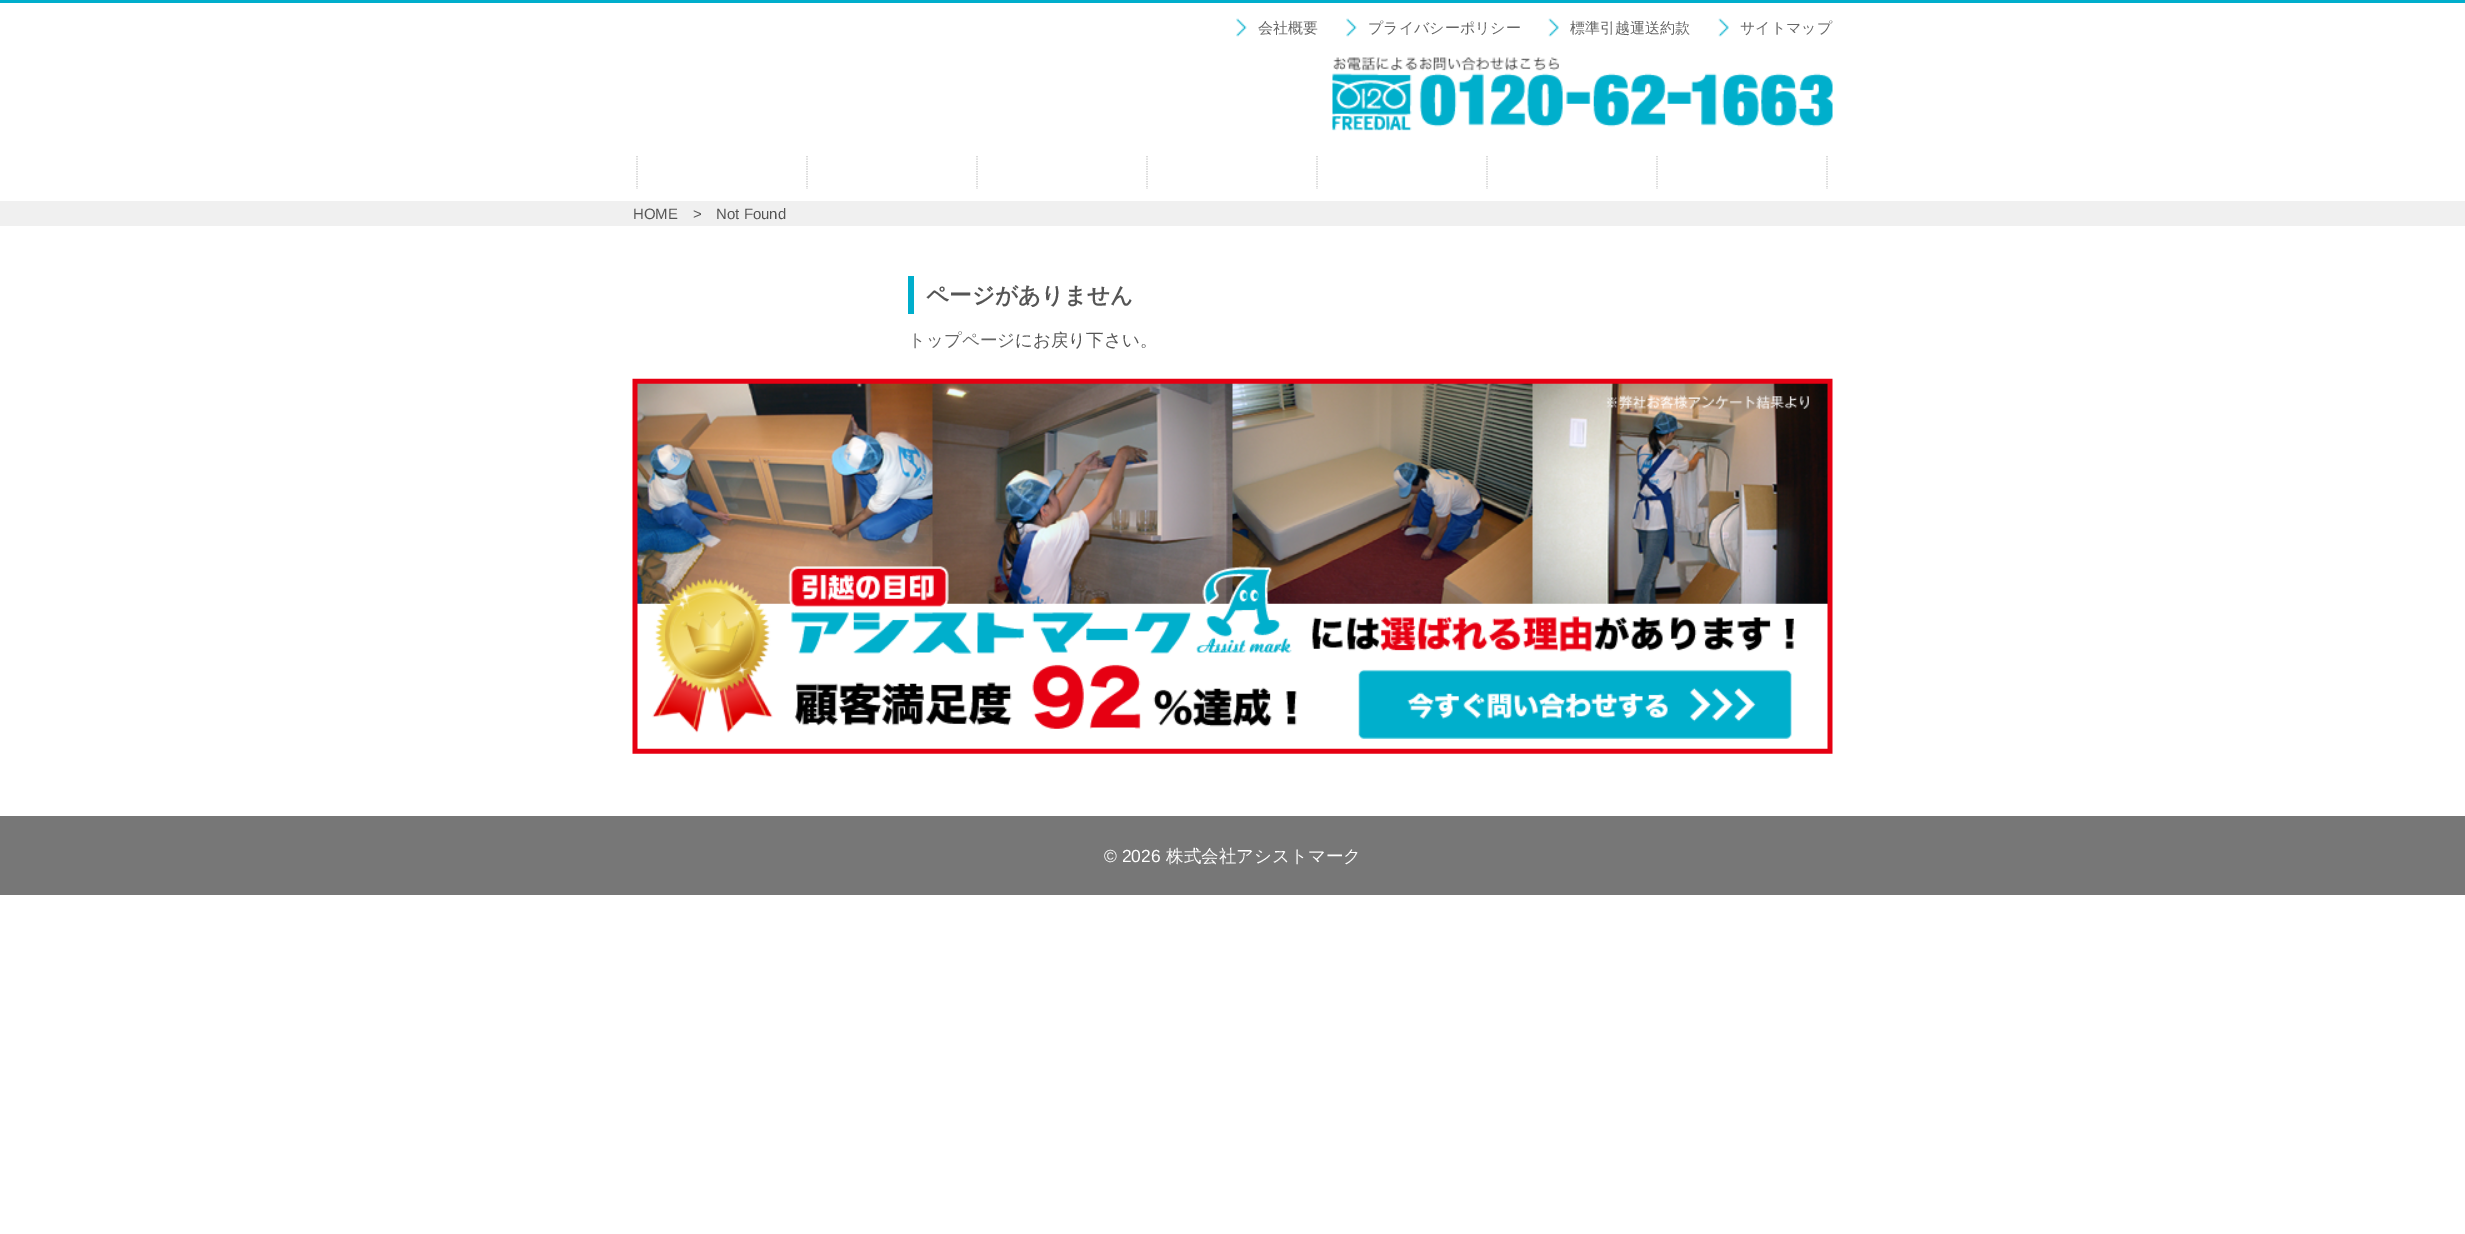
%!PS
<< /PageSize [2465 1234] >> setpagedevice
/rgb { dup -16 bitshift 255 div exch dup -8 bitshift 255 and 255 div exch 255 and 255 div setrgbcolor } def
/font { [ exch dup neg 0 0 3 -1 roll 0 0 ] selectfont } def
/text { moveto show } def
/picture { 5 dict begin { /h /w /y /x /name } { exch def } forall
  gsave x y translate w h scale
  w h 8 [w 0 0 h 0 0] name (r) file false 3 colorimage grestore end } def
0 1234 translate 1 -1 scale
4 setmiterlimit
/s1 { /WenQuanYiZenHei-Medium 15 font 16#666666 rgb } def
/s2 { /LiberationSans-Regular 15 font 16#555555 rgb } def
/s3 { /WenQuanYiZenHei-Bold 22.5 font 16#555555 rgb } def
/s4 { /WenQuanYiZenHei-Medium 17.5 font 16#666666 rgb } def
/s5 { /WenQuanYiZenHei-Medium 17.5 font 16#555555 rgb } def
/s6 { /LiberationSans-Regular 17.5 font 16#FFFFFF rgb } def
/s7 { /WenQuanYiZenHei-Medium 17.5 font 16#FFFFFF rgb } def
16#FFFFFF rgb
0 0 2465 1234 rectfill
16#00AECC rgb
0 0 2465 3 rectfill
(pic1.raw) 1236 18 11 19 picture
s1
(会社概要) 1258 33 text
(pic2.raw) 1346 18 11 19 picture
(プライバシーポリシー) 1368 33 text
(pic3.raw) 1548 18 11 19 picture
(標準引越運送約款) 1570 33 text
(pic3.raw) 1718 18 11 19 picture
(サイトマップ) 1740 33 text
(pic4.raw) 1332 56 501 75 picture
16#CCCCCC rgb
1.2 setlinewidth
[1.25 1.25] 0 setdash
637 156 moveto 637 189 lineto stroke
807 156 moveto 807 189 lineto stroke
977 156 moveto 977 189 lineto stroke
1147 156 moveto 1147 189 lineto stroke
1317 156 moveto 1317 189 lineto stroke
1487 156 moveto 1487 189 lineto stroke
1657 156 moveto 1657 189 lineto stroke
1827 156 moveto 1827 189 lineto stroke
16#F0F0F0 rgb
0 201 2465 25 rectfill
s2
(HOME) 633 219 text
(>) 693 219 text
(Not Found) 716 219 text
16#00AECC rgb
908 276 6 38 rectfill
s3
(ページがありません) 926 303 text
s4
(トップページ) 908 346 text
s5
(にお戻り下さい。) 1015 346 text
(pic5.raw) 632 378 1201 376 picture
16#777777 rgb
0 816 2465 79 rectfill
s6
(© 2026) 1104 862 text
s7
(株式会社アシストマーク) 1166 862 text
showpage
